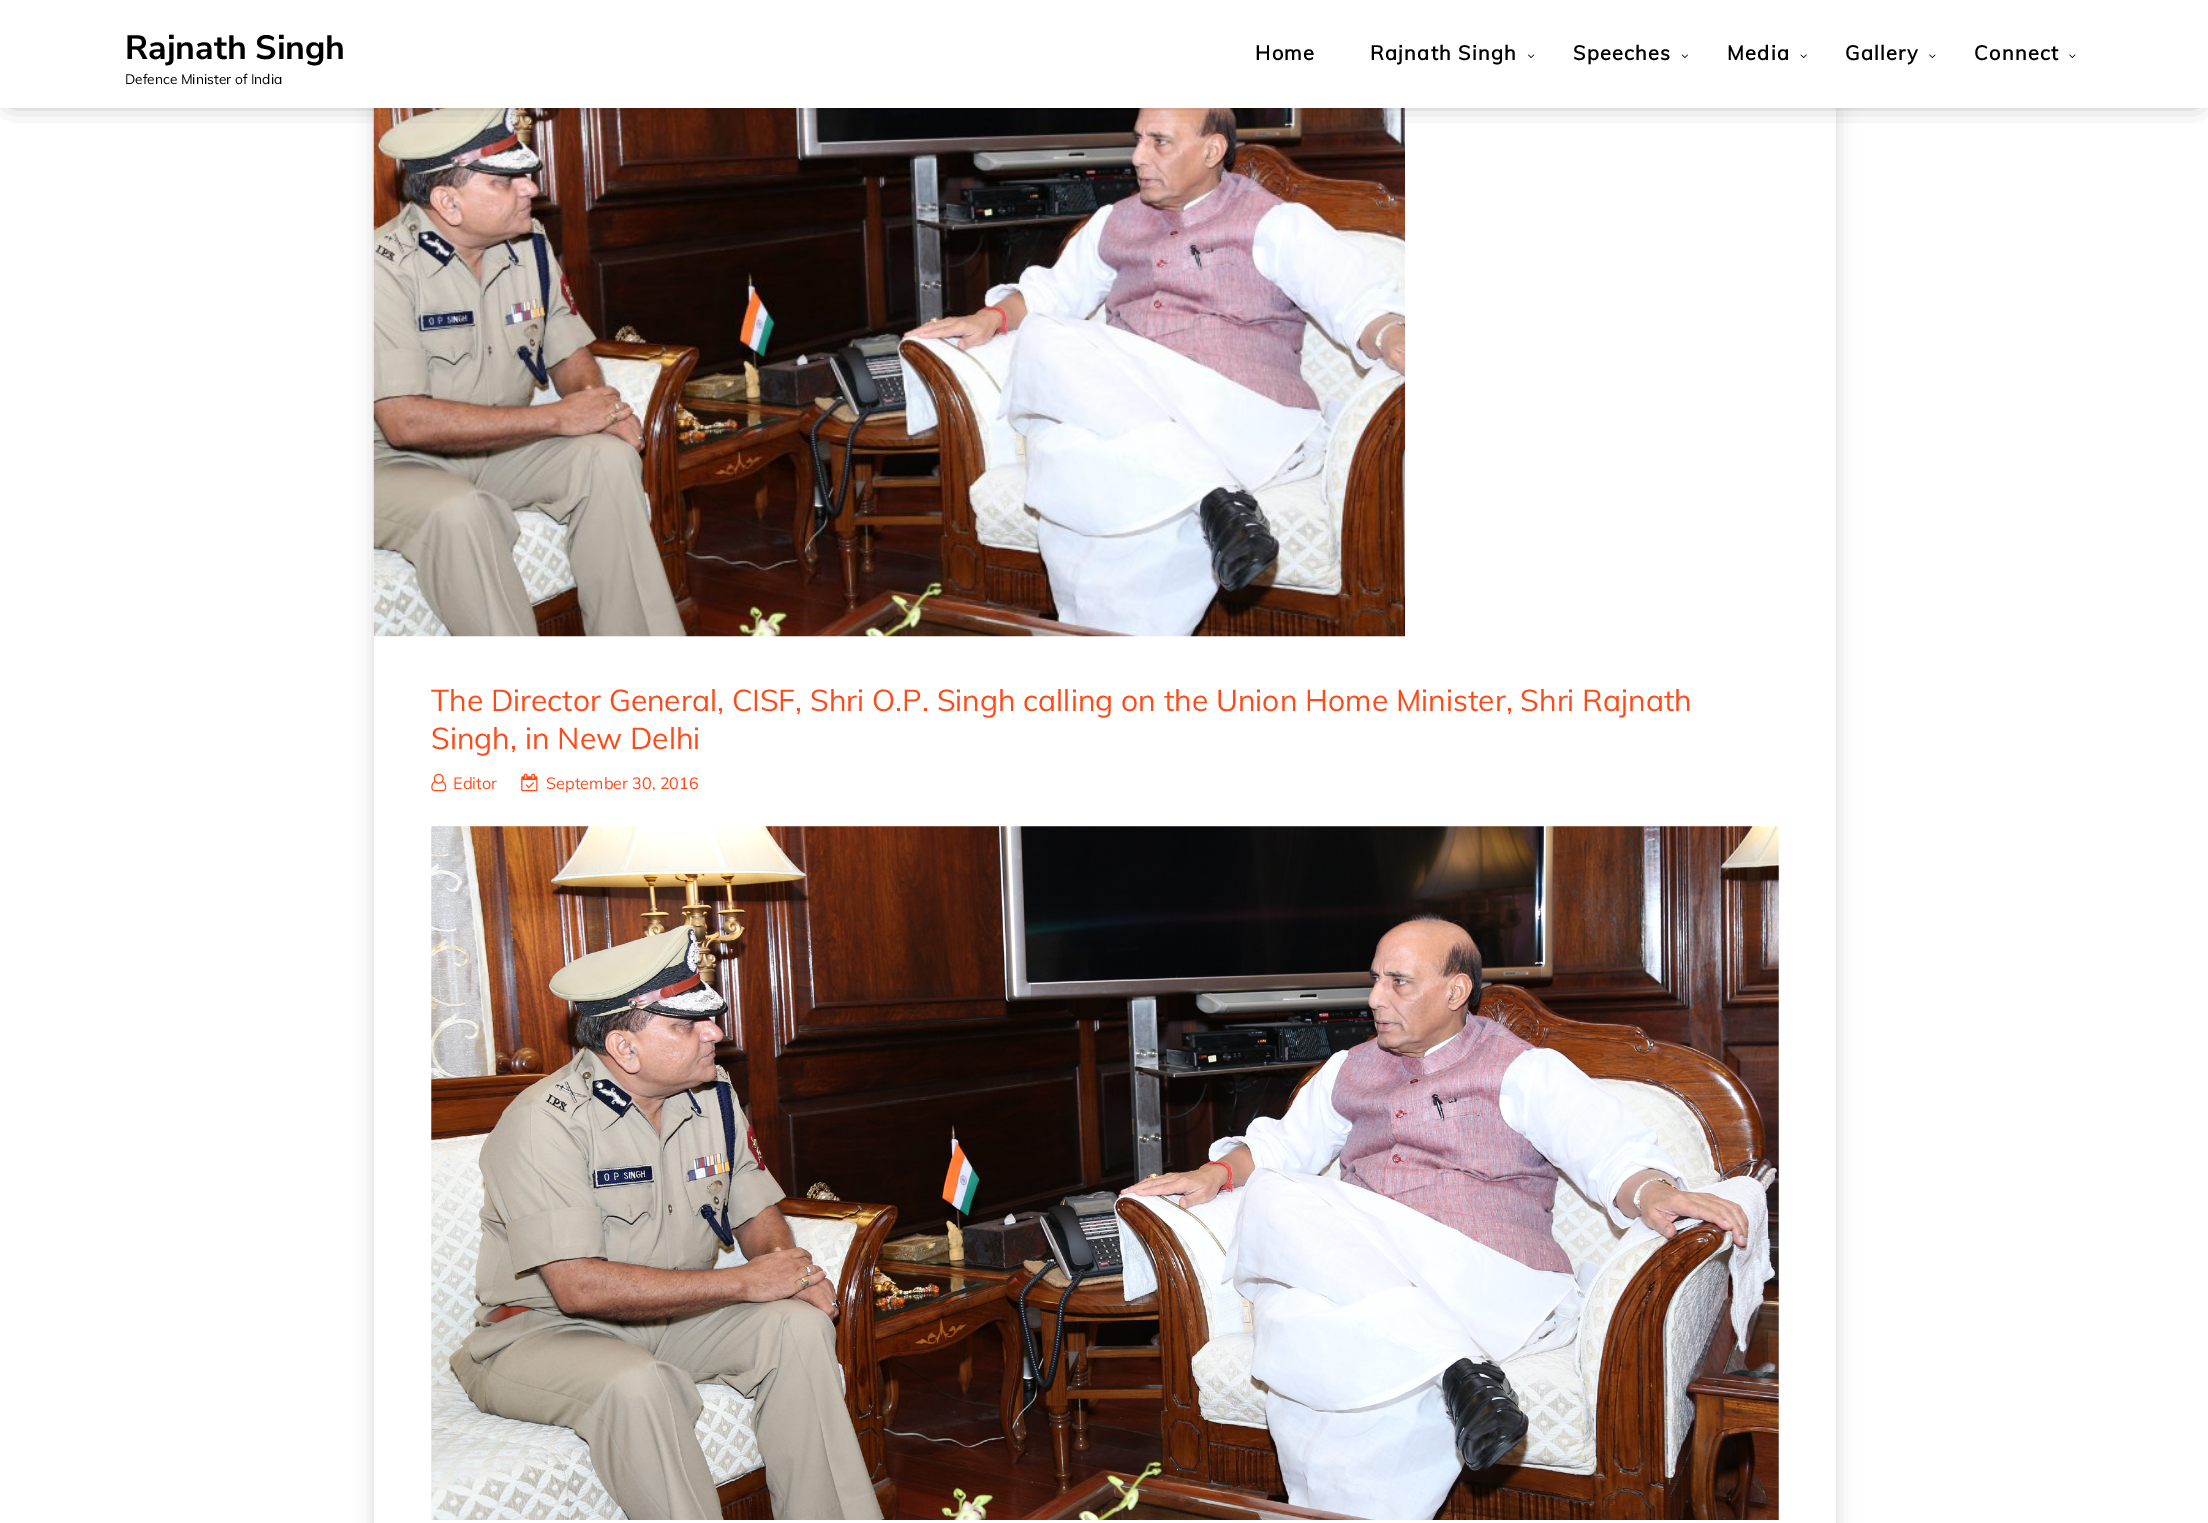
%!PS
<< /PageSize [2208 1523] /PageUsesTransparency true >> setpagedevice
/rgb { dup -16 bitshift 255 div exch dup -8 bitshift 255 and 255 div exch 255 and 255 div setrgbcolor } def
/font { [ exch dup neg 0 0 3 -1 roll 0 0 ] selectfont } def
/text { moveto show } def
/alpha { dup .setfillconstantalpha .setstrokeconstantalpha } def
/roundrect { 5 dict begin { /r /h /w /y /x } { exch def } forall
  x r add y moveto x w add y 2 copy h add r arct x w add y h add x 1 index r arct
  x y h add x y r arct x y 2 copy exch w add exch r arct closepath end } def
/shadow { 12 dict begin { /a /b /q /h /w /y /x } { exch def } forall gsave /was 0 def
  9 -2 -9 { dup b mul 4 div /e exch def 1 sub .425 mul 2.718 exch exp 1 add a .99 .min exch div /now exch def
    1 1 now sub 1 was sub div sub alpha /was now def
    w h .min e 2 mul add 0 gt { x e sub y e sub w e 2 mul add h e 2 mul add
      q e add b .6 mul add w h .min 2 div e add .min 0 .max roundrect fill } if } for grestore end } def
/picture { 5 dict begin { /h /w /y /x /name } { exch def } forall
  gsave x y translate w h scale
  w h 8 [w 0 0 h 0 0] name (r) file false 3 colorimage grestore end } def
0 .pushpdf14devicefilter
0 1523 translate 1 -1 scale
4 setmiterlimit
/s1 { /NunitoSans-Bold 33.75 font 16#000000 rgb } def
/s2 { /Muli-Regular 13.75 font 16#000000 rgb } def
/s3 { /Muli-Regular 30 font 16#FF4A17 rgb } def
/s4 { /Muli-Regular 16.25 font 16#FF4A17 rgb } def
16#FFFFFF rgb
0 0 2208 1523 rectfill
gsave
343 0 moveto 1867 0 lineto 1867 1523 lineto 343 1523 lineto closepath 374 -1 moveto 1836 -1 lineto 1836 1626 lineto 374 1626 lineto closepath eoclip newpath
16#000000 rgb
374 9 1462 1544 0 10 0.15 shadow
grestore
(pic5.raw) 373 108 1032 529 picture
16#000000 rgb
13 13 2183 82 0 12.5 0.8 shadow
16#FFFFFF rgb
0 0 2208 108 rectfill
s1
(Rajnath Singh) 125 59 text
s2
(Defence Minister of India) 125 84 text
/Muli-Bold 20 font
1255 60 moveto 1.25 0 (Home) ashow
1370 60 moveto 1.25 0 (Rajnath Singh) ashow
(pic1.raw) 1528 54 7 4 picture
1573 60 moveto 1.25 0 (Speeches) ashow
(pic2.raw) 1681 54 7 5 picture
1727 60 moveto 1.25 0 (Media) ashow
(pic3.raw) 1800 54 7 5 picture
1845 60 moveto 1.25 0 (Gallery) ashow
(pic4.raw) 1929 54 7 5 picture
1974 60 moveto 1.25 0 (Connect) ashow
(pic4.raw) 2069 54 7 5 picture
s3
(The Director General, CISF, Shri O.P. Singh calling on the Union Home Minister, Shri Rajnath) 431 711 text
(Singh, in New Delhi) 431 749 text
(pic6.raw) 431 773 16 19 picture
s4
(Editor) 453 789 text
(pic7.raw) 521 773 17 19 picture
(September 30, 2016) 546 789 text
(pic8.raw) 431 826 1348 694 picture
.poppdf14devicefilter showpage
